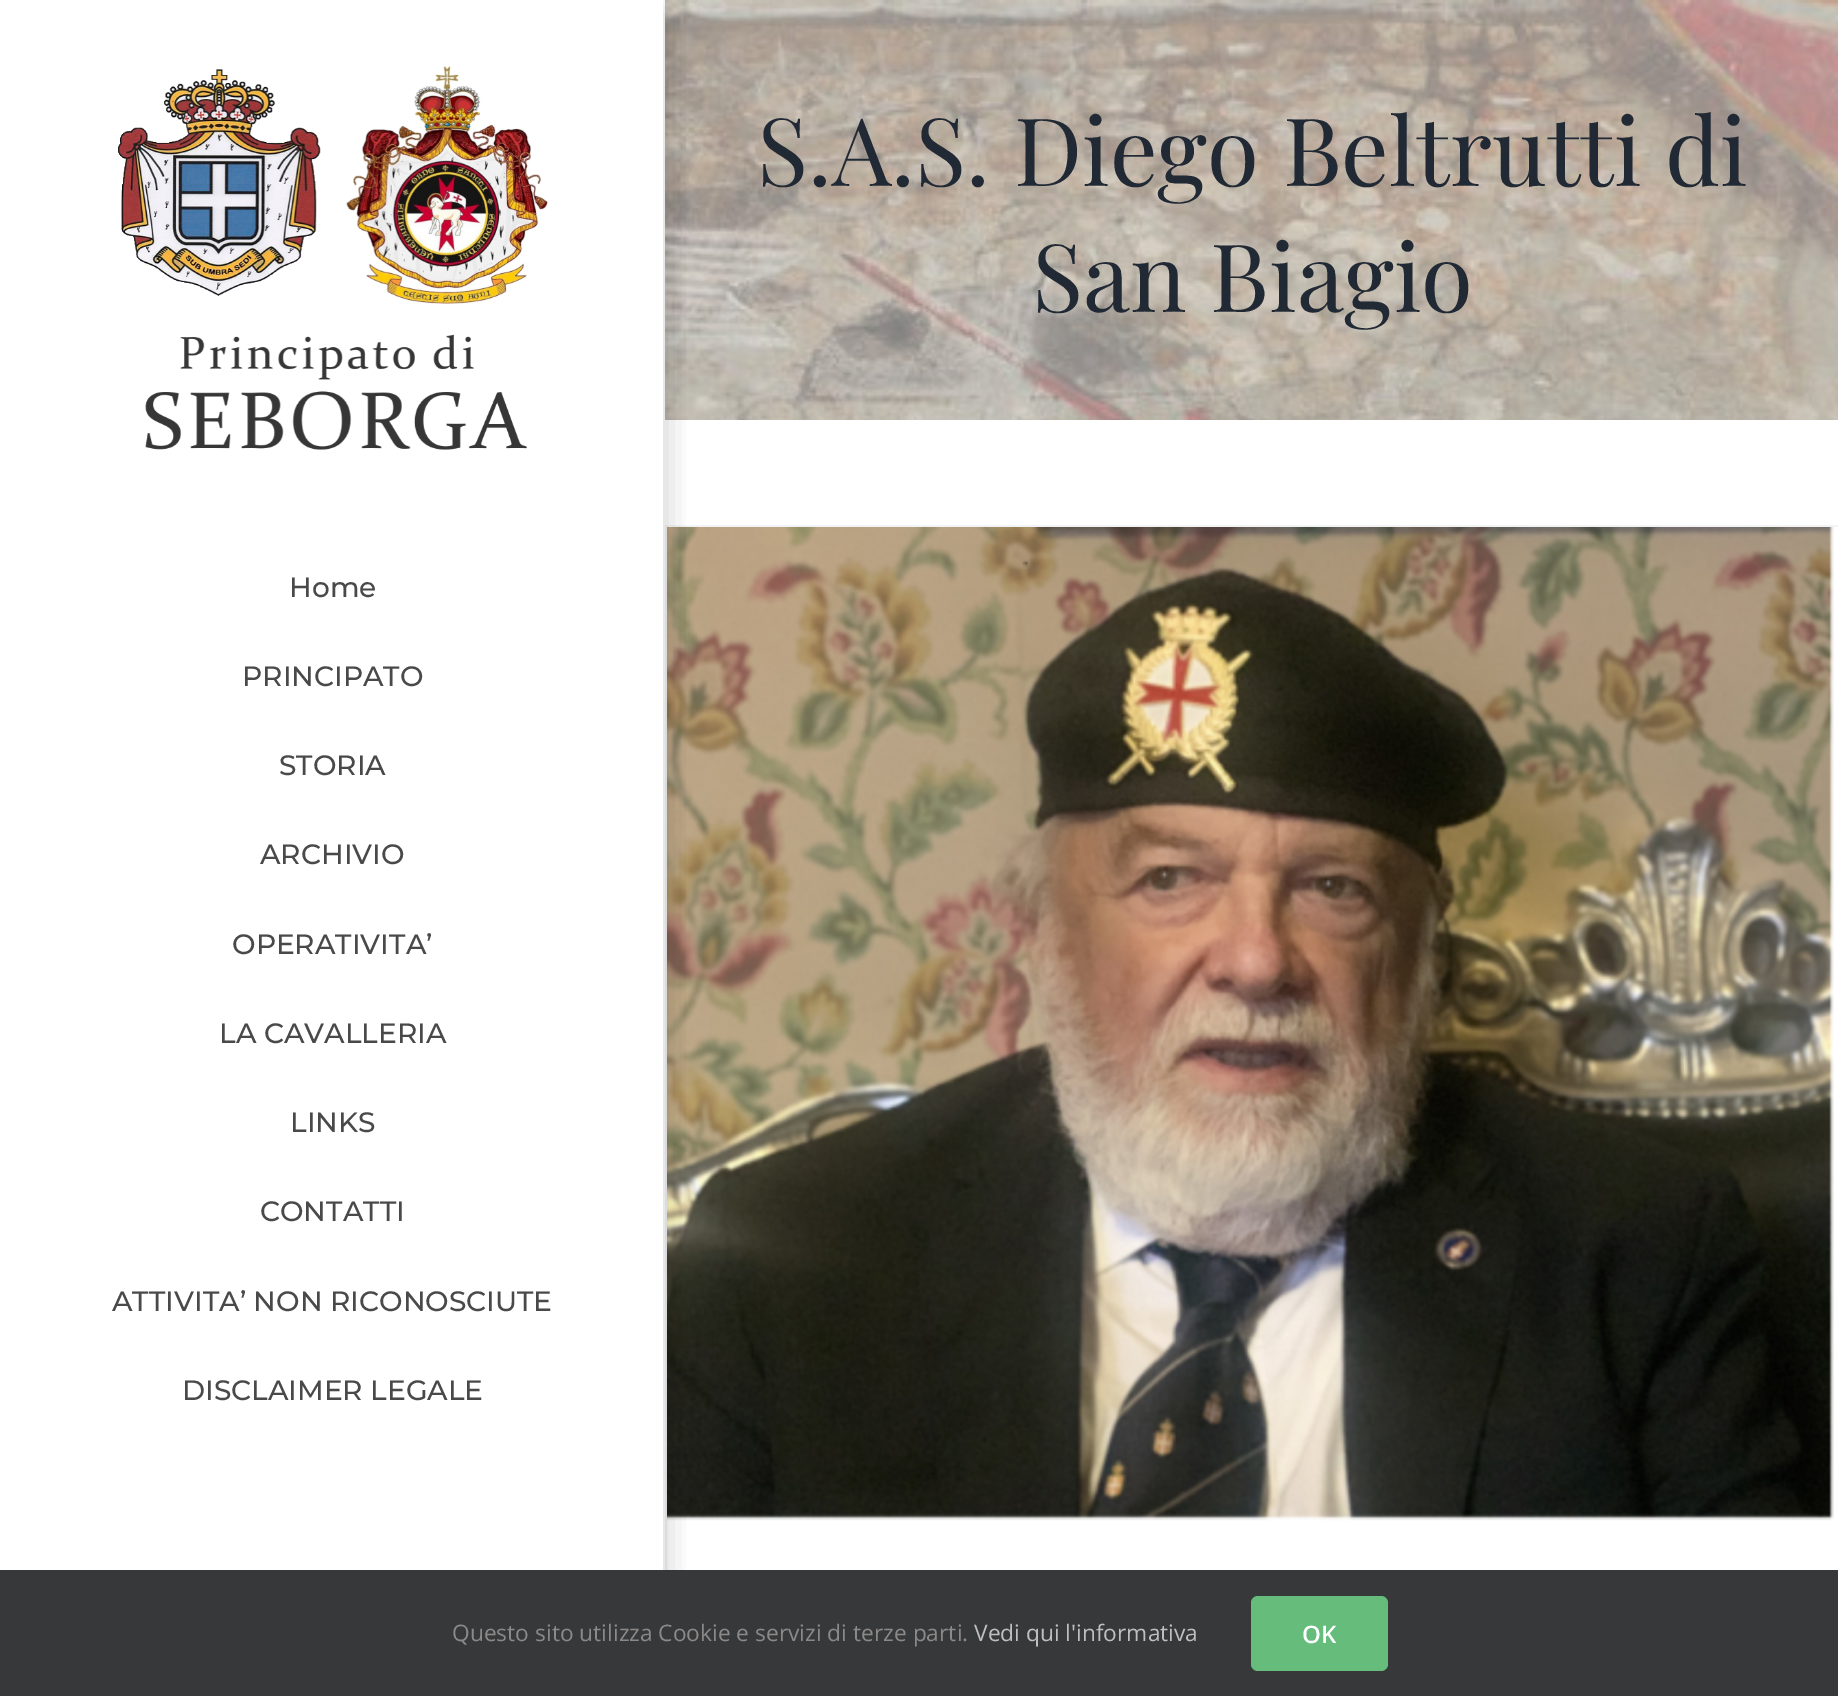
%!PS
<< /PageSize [1838 1696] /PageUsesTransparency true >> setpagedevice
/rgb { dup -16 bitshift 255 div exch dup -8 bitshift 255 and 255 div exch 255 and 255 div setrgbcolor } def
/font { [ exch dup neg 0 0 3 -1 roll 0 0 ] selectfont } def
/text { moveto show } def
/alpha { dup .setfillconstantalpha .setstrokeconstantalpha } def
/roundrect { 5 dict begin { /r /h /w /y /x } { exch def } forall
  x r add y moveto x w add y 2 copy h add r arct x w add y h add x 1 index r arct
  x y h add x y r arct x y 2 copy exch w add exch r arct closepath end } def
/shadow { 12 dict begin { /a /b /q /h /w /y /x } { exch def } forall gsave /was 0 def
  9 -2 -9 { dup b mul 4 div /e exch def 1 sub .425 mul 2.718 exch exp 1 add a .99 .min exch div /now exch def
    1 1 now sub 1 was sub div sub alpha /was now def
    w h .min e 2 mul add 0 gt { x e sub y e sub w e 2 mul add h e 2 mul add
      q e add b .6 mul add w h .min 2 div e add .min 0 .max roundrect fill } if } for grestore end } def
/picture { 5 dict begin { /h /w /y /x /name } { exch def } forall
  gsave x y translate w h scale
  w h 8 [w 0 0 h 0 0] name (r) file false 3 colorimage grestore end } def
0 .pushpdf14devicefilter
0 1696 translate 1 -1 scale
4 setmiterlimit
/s1 { /PlayfairDisplay-Regular 94.5 font 16#212934 rgb } def
/s2 { /Montserrat-Medium 28 font 16#494949 rgb } def
/s3 { /OpenSans-Regular 22.75 font 16#8C8989 rgb } def
/s4 { /OpenSans-Regular 22.75 font 16#BFBFBF rgb } def
/s5 { /OpenSans-SemiBold 24 font 16#FFFFFF rgb } def
16#FFFFFF rgb
0 0 1838 1696 rectfill
(pic1.raw) 665 0 1173 420 picture
s1
(S.A.S. Diego Beltrutti di) 757 186 text
(San Biagio) 1032 312 text
(pic2.raw) 118 65 430 385 picture
s2
(Home) 289 597 text
(PRINCIPATO) 242 686 text
(STORIA) 279 775 text
(ARCHIVIO) 260 864 text
(OPERATIVITA’) 232 954 text
(LA CAVALLERIA) 219 1043 text
(LINKS) 290 1132 text
(CONTATTI) 260 1221 text
(ATTIVITA’ NON RICONOSCIUTE) 112 1311 text
(DISCLAIMER LEGALE) 182 1400 text
16#F2F3F5 rgb
665 525 1173 2 rectfill
665 525 2 1045 rectfill
(pic3.raw) 667 527 1171 1043 picture
gsave
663 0 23 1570 rectclip
16#000000 rgb
646 9 26 1680 0 13 0.14 shadow
grestore
16#363839 rgb
0 1570 1838 126 rectfill
s3
(Questo sito utilizza Cookie e servizi di terze parti.) 452 1641 text
s4
(Vedi qui l'informativa) 974 1641 text
16#65BC7B rgb
1251 1596 137 75 7 roundrect fill
s5
(OK) 1302 1643 text
.poppdf14devicefilter showpage
